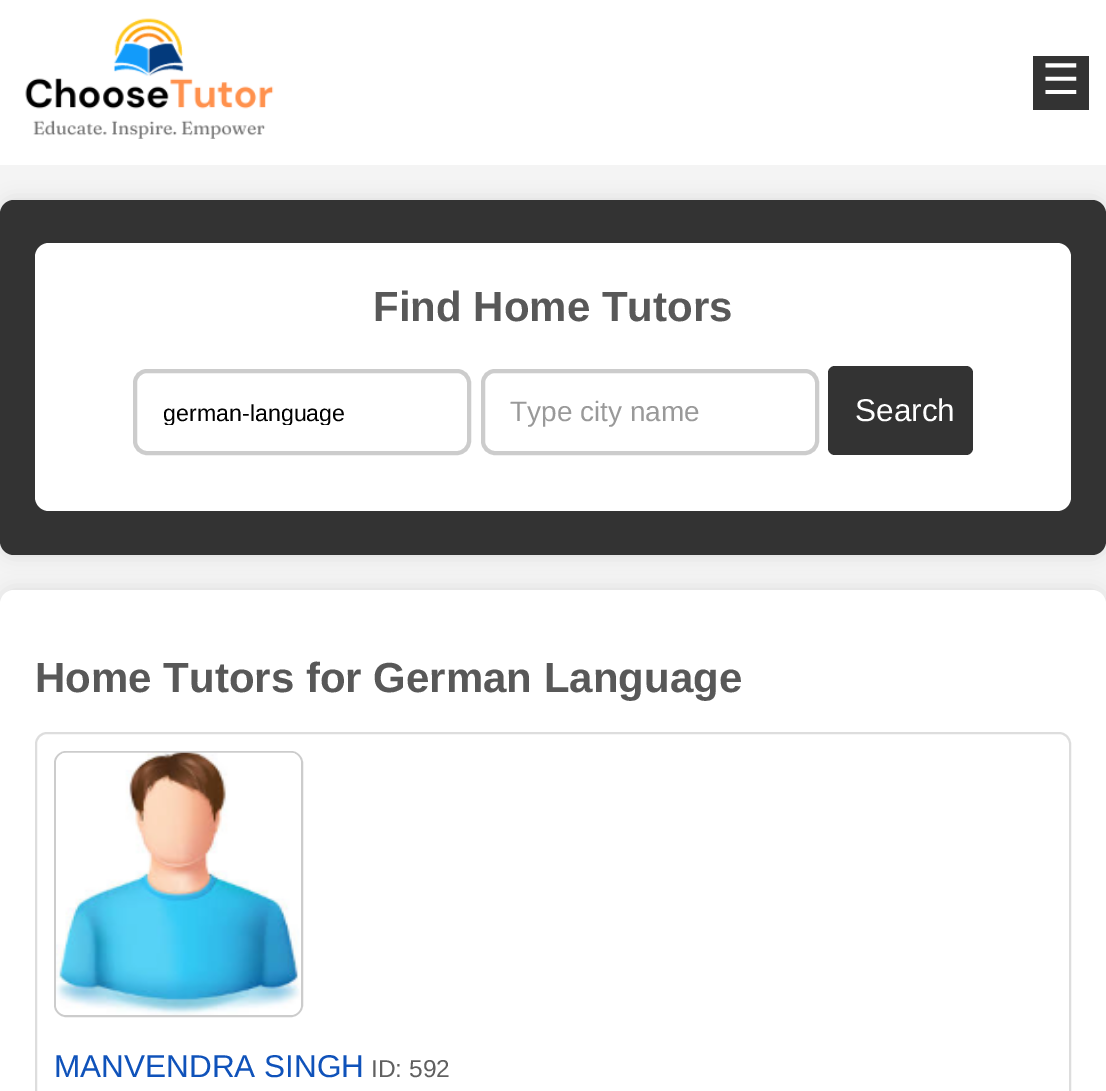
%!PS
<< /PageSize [1106 1091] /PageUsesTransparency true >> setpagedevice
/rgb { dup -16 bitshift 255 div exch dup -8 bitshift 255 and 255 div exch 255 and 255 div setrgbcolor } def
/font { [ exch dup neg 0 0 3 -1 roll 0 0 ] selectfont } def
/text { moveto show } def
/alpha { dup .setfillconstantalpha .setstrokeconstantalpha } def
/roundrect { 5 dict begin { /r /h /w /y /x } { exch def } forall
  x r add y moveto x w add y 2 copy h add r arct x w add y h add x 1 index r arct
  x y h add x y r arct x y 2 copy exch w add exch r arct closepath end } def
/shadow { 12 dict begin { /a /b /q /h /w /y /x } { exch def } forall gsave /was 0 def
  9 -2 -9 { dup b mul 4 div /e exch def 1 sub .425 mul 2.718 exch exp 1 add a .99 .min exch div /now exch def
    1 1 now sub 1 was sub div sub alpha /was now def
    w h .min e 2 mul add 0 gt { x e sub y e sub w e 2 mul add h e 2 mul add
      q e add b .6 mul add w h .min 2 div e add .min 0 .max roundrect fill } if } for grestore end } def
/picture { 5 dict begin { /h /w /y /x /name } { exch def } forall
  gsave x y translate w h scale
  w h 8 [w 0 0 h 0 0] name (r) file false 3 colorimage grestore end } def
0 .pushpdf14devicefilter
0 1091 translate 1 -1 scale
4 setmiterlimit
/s1 { /DejaVuSans-Regular 42 font 16#FFFFFF rgb } def
/s2 { /LiberationSans-Bold 42 font 16#585858 rgb } def
/s3 { /LiberationSans-Regular 23.25 font 16#000000 rgb } def
/s4 { /LiberationSans-Regular 28 font 16#999999 rgb } def
/s5 { /LiberationSans-Regular 31.5 font 16#FFFFFF rgb } def
/s6 { /LiberationSans-Regular 31.5 font 16#0F52BA rgb } def
/s7 { /LiberationSans-Regular 24.5 font 16#606060 rgb } def
16#F4F4F4 rgb
0 0 1106 1091 rectfill
16#FFFFFF rgb
0 0 1106 165 rectfill
(pic1.raw) 25 18 249 121 picture
16#333333 rgb
1033 56 56 54 rectfill
s1
(☰) 1042 94 text
16#000000 rgb
0 200 1106 355 14 9 0.1 shadow
16#333333 rgb
0 200 1106 355 14 roundrect fill
16#FFFFFF rgb
35 243 1036 268 14 roundrect fill
s2
(Find Home Tutors) 373 321 text
16#CCCCCC rgb
4 setlinewidth
135 371 334 82 12 roundrect stroke
gsave
163 399 278 26 rectclip
s3
(german-language) 163 421 text
grestore
483 371 334 82 12 roundrect stroke
s4
(Type city name) 510 421 text
16#333333 rgb
828 366 145 89 7 roundrect fill
s5
(Search) 855 421 text
16#000000 rgb
0 590 1106 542 14 9 0.1 shadow
16#FFFFFF rgb
0 590 1106 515 14 roundrect fill
s2
(Home Tutors for German Language) 35 692 text
16#DDDDDD rgb
2 setlinewidth
36 733 1034 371 11 roundrect stroke
16#CCCCCC rgb
55 752 247 264 11 roundrect stroke
(pic2.raw) 56 752 245 263 picture
s6
(MANVENDRA SINGH) 54 1077 text
s7
(ID: 592) 371 1077 text
.poppdf14devicefilter showpage
